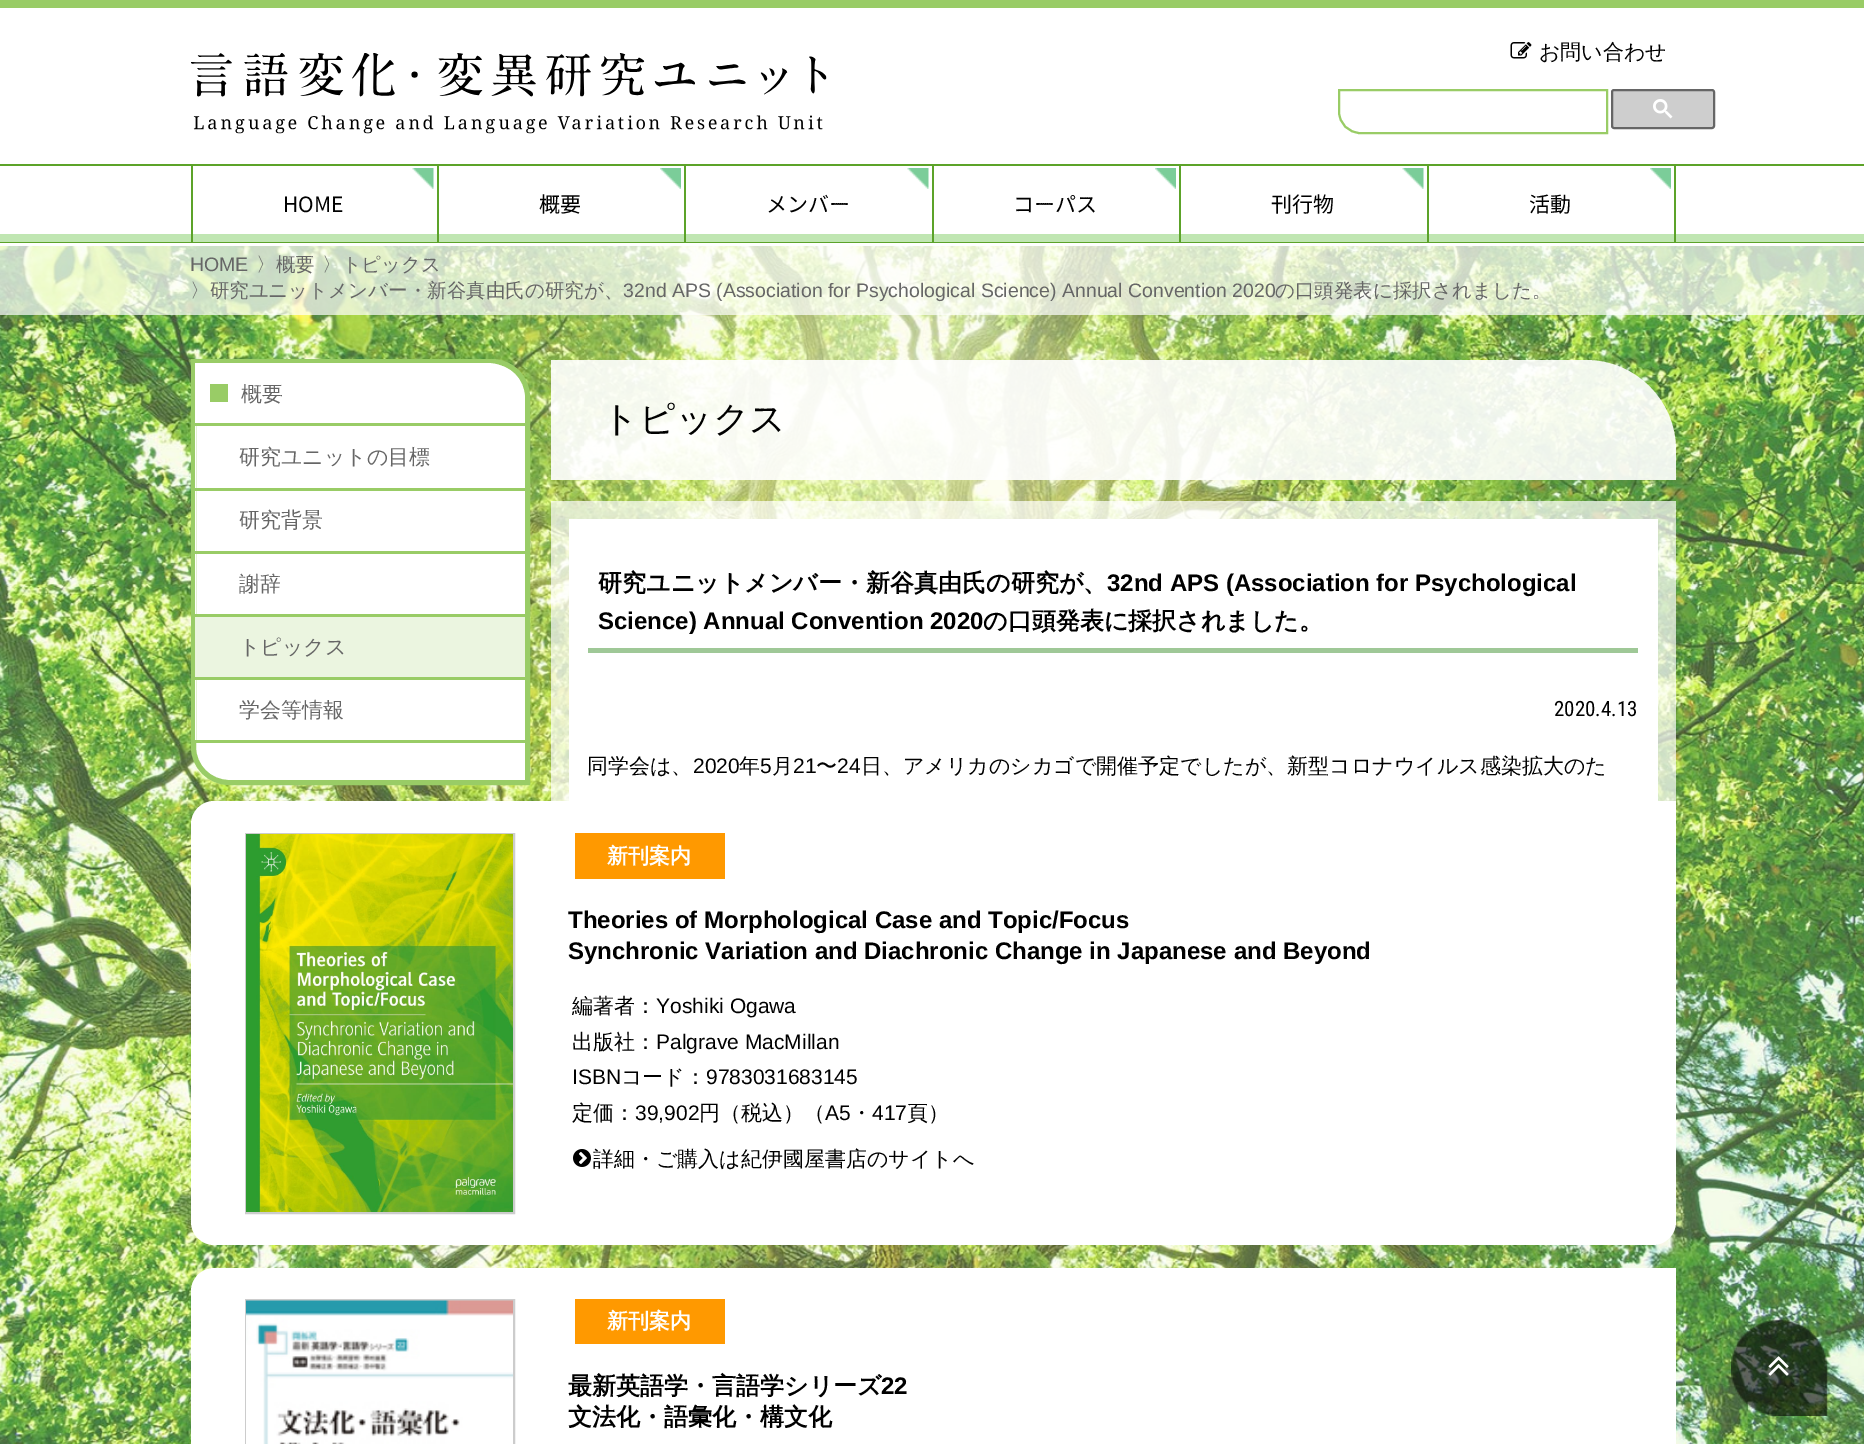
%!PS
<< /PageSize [1864 1444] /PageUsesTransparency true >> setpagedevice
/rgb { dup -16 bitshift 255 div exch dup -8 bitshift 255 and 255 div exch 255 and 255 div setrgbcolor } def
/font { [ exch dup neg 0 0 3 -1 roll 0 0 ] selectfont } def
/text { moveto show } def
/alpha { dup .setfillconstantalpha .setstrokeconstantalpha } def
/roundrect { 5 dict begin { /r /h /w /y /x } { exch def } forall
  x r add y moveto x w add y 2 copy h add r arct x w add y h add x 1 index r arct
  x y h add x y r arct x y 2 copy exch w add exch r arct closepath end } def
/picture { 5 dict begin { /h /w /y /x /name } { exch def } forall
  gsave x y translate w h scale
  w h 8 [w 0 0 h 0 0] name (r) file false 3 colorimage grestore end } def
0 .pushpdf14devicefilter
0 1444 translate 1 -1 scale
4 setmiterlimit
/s1 { /WenQuanYiZenHei-Medium 21 font 16#000000 rgb } def
/s2 { /NotoSansJP-Regular 21 font 16#000000 rgb } def
/s3 { /LiberationSans-Regular 19.5 font 16#666666 rgb } def
/s4 { /WenQuanYiZenHei-Medium 19.5 font 16#666666 rgb } def
/s5 { /WenQuanYiZenHei-Medium 21 font 16#666666 rgb } def
/s6 { /WenQuanYiZenHei-Medium 36 font 16#000000 rgb } def
/s7 { /WenQuanYiZenHei-Bold 24 font 16#000000 rgb } def
/s8 { /LiberationSans-Bold 24 font 16#000000 rgb } def
/s9 { /RobotoCondensed-Regular 21 font 16#000000 rgb } def
/s10 { /LiberationSans-Regular 21 font 16#000000 rgb } def
/s11 { /WenQuanYiZenHei-Bold 21 font 16#FFFFFF rgb } def
16#FFFFFF rgb
0 0 1864 1444 rectfill
(pic1.raw) 0 246 1864 1198 picture
16#99CC66 rgb
0 0 1864 8 rectfill
(pic2.raw) 191 53 636 81 picture
(pic3.raw) 1510 42 22 17 picture
s1
(お問い合わせ) 1539 59 text
16#99CC66 rgb
2 setlinewidth
1339 90 moveto 1607 90 lineto 1607 133 lineto 1360.5 133 lineto 1348.5 133 1339 123.5 1339 111.5 curveto closepath stroke
16#CECECE rgb
1612 90 102 38 2 roundrect gsave fill grestore
16#666666 rgb
stroke
(pic4.raw) 1653 99 20 20 picture
0.7 alpha
16#FFFFFF rgb
0 246 1864 69 rectfill
1 alpha
16#C0E6B2 rgb
0 234 1864 8 rectfill
16#5CA329 rgb
0 164 1864 2 rectfill
0 242 1864 1 rectfill
437 165 2 77 rectfill
191 165 2 77 rectfill
(pic5.raw) 412 168 22 21 picture
s2
(HOME) 283 212 text
16#5CA329 rgb
684 165 2 77 rectfill
(pic6.raw) 660 168 21 21 picture
s2
(概要) 539 212 text
16#5CA329 rgb
932 165 2 77 rectfill
(pic7.raw) 907 168 22 21 picture
s2
(メンバー) 766 212 text
16#5CA329 rgb
1179 165 2 77 rectfill
(pic8.raw) 1155 168 21 21 picture
s2
(コーパス) 1013 212 text
16#5CA329 rgb
1427 165 2 77 rectfill
(pic5.raw) 1402 168 22 21 picture
s2
(刊行物) 1271 212 text
16#5CA329 rgb
1674 165 2 77 rectfill
(pic6.raw) 1650 168 21 21 picture
s2
(活動) 1529 212 text
s3
(HOME) 190 271 text
s4
(〉概要) 256 271 text
(〉トピックス) 322 271 text
(〉研究ユニットメンバー・新谷真由氏の研究が、) 190 297 text
s3
(32nd APS \(Association for Psychological Science\) Annual Convention 2020) 623 297 text
s4
(の口頭発表に採択されました。) 1275 297 text
16#FFFFFF rgb
193.5 361.5 moveto 492 361.5 lineto 511.5 361.5 527.5 377.5 527.5 397 curveto 527.5 782.5 lineto 229 782.5 lineto 209.5 782.5 193.5 766.5 193.5 747 curveto closepath gsave fill grestore
16#99CC66 rgb
5 setlinewidth
stroke
195 423 330 3 rectfill
16#FFFFFF rgb
195 363 moveto 487 363 lineto 508 363 525 380 525 401 curveto 525 423 lineto 195 423 lineto closepath fill
16#99CC66 rgb
210 384 18 18 rectfill
s5
(概要) 241 401 text
16#99CC66 rgb
195 488 330 3 rectfill
16#FFFFFF rgb
195 426 1 62 rectfill
s5
(研究ユニットの目標) 239 464 text
16#99CC66 rgb
195 551 330 3 rectfill
16#FFFFFF rgb
195 491 1 60 rectfill
s5
(研究背景) 239 527 text
16#99CC66 rgb
195 614 330 3 rectfill
16#FFFFFF rgb
195 554 1 60 rectfill
s5
(謝辞) 239 591 text
16#99CC66 rgb
195 677 330 3 rectfill
16#EBF5E0 rgb
195 617 330 60 rectfill
s5
(トピックス) 239 654 text
16#99CC66 rgb
195 740 330 3 rectfill
16#FFFFFF rgb
195 680 1 60 rectfill
s5
(学会等情報) 239 717 text
0.9 alpha
16#FFFFFF rgb
551 360 moveto 1586 360 lineto 1635.5 360 1676 400.5 1676 450 curveto 1676 480 lineto 551 480 lineto closepath fill
1 alpha
s6
(トピックス) 602 431 text
0.7 alpha
16#FFFFFF rgb
551 501 1125 300 rectfill
1 alpha
569 519 1089 282 rectfill
16#9FC897 rgb
588 648 1050 5 rectfill
s7
(研究ユニットメンバー・新谷真由氏の研究が、) 598 591 text
s8
(32nd APS \(Association for Psychological) 1107 591 text
(Science\) Annual Convention 2020) 598 629 text
s7
(の口頭発表に採択されました。) 983 629 text
s9
(2020.4.13) 1554 716 text
s1
(同学会は、) 587 773 text
s10
(2020) 693 773 text
s1
(年) 739 773 text
s10
(5) 760 773 text
s1
(月) 772 773 text
s10
(21) 793 773 text
s1
(〜) 816 773 text
s10
(24) 837 773 text
s1
(日、アメリカのシカゴで開催予定でしたが、新型コロナウイルス感染拡大のた) 861 773 text
16#FFFFFF rgb
214 801 moveto 1676 801 lineto 1676 1222 lineto 1676 1234.5 1665.5 1245 1653 1245 curveto 214 1245 lineto 201.5 1245 191 1234.5 191 1222 curveto 191 824 lineto 191 811.5 201.5 801 214 801 curveto closepath fill
16#CCCCCC rgb
2 setlinewidth
246 834 268 379 rectstroke
(pic9.raw) 246 834 267 378 picture
16#FF9900 rgb
575 833 150 46 rectfill
s11
(新刊案内) 607 863 text
s8
(Theories of Morphological Case and Topic/Focus) 568 928 text
(Synchronic Variation and Diachronic Change in Japanese and Beyond) 568 959 text
s1
(編著者：) 572 1013 text
s10
(Yoshiki Ogawa) 656 1013 text
s1
(出版社：) 572 1049 text
s10
(Palgrave MacMillan) 656 1049 text
(ISBN) 572 1084 text
s1
(コード：) 621 1084 text
s10
(9783031683145) 706 1084 text
s1
(定価：) 572 1120 text
s10
(39,902) 635 1120 text
s1
(円（税込）（) 699 1120 text
s10
(A5) 825 1120 text
s1
(・) 851 1120 text
s10
(417) 872 1120 text
s1
(頁）) 907 1120 text
(pic10.raw) 573 1149 18 18 picture
(詳細・ご購入は紀伊國屋書店のサイトへ) 593 1166 text
16#FFFFFF rgb
214 1268 moveto 1676 1268 lineto 1676 1444 lineto 1676 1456.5 1665.5 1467 1653 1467 curveto 214 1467 lineto 201.5 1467 191 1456.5 191 1444 curveto 191 1291 lineto 191 1278.5 201.5 1268 214 1268 curveto closepath fill
16#CCCCCC rgb
246 1300 268 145 rectstroke
(pic11.raw) 246 1300 267 144 picture
16#FF9900 rgb
575 1299 150 45 rectfill
s11
(新刊案内) 607 1328 text
s7
(最新英語学・言語学シリーズ) 568 1394 text
s8
(22) 881 1394 text
s7
(文法化・語彙化・構文化) 568 1425 text
(pic12.raw) 1731 1319 97 97 picture
(pic13.raw) 1768 1356 21 20 picture
.poppdf14devicefilter showpage
